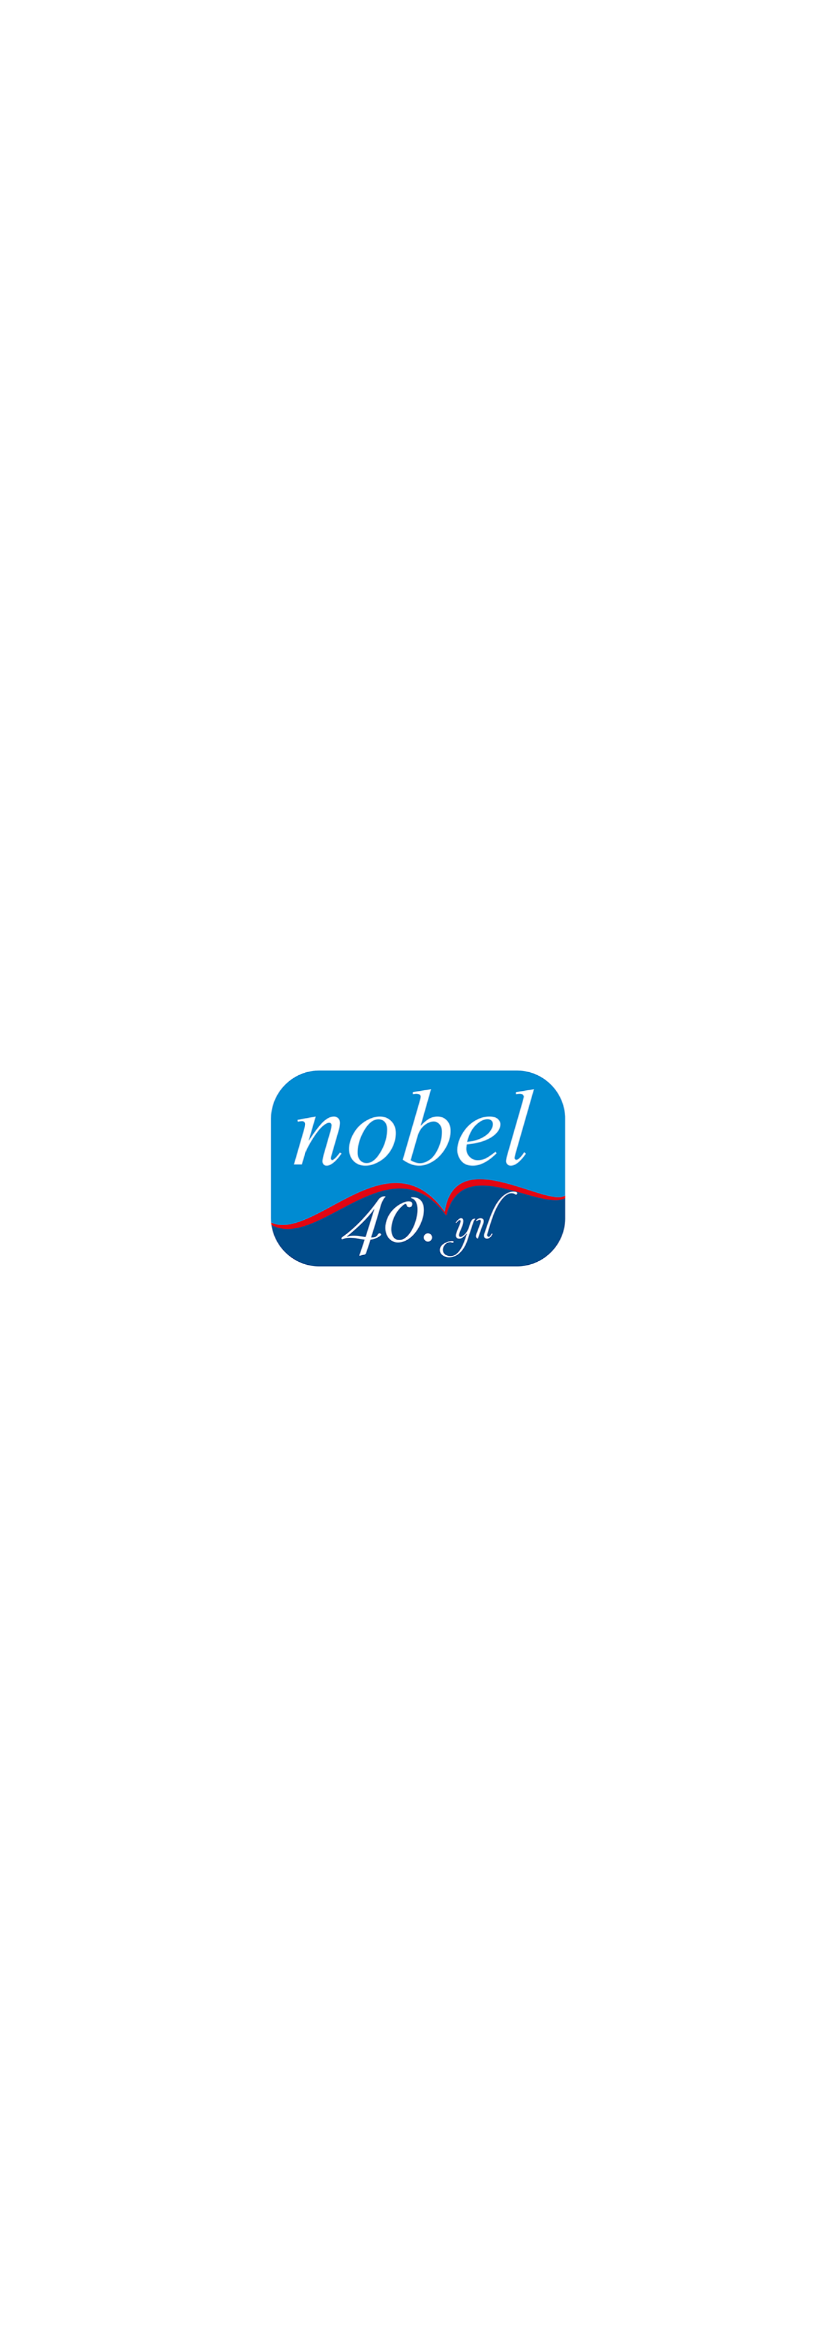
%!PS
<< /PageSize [836 2336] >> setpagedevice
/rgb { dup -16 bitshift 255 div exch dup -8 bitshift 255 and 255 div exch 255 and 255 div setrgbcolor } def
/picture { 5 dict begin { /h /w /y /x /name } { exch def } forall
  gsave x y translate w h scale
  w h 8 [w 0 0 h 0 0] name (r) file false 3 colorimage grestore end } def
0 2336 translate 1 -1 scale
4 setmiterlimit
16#FFFFFF rgb
0 0 836 2336 rectfill
(pic1.raw) 270 1070 296 197 picture
showpage
